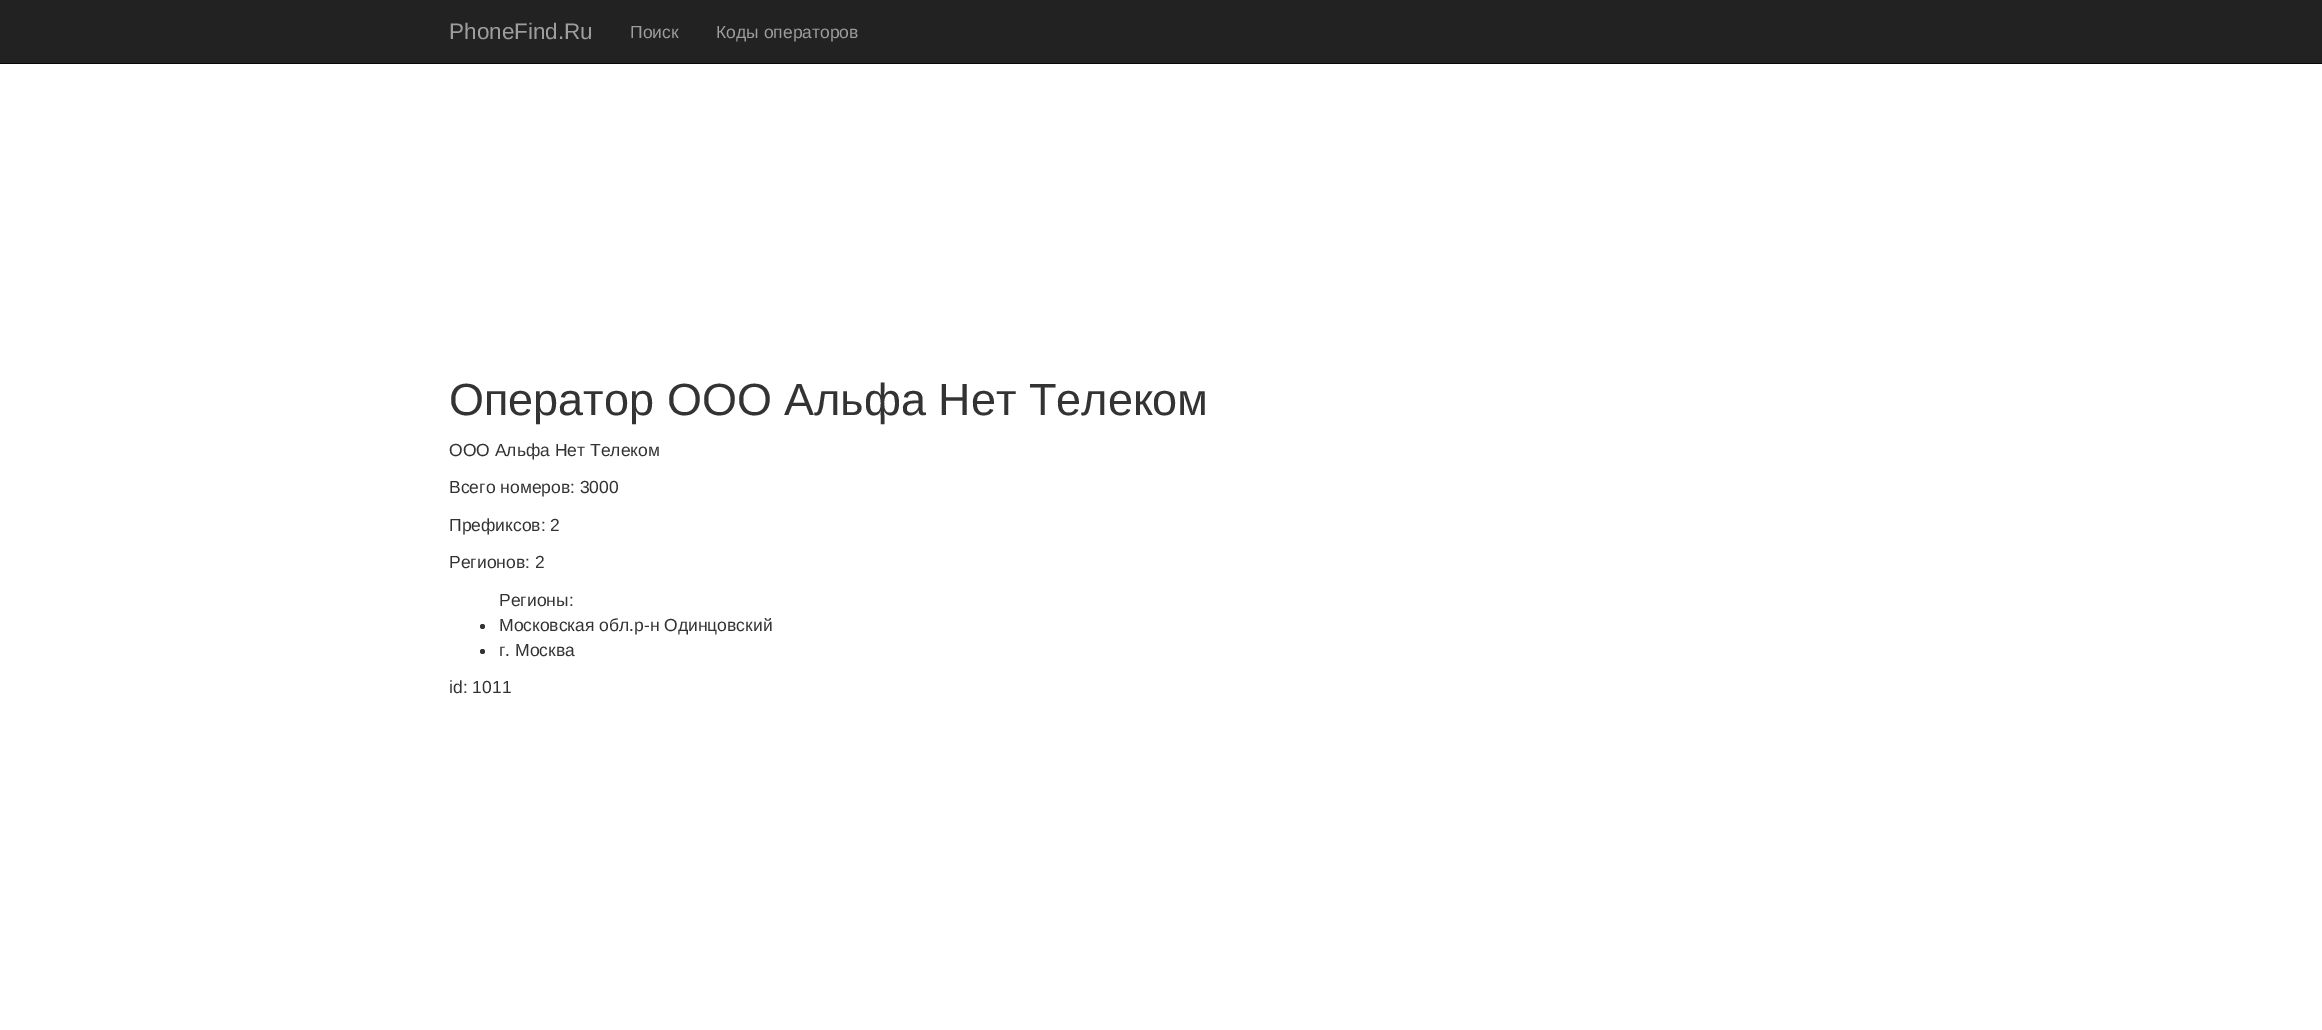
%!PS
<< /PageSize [2322 1030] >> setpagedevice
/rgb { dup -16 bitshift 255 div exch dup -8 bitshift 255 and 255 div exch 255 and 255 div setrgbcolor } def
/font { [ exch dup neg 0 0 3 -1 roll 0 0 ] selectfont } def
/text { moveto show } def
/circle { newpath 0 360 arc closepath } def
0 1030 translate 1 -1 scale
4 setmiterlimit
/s1 { /LiberationSans-Regular 22.5 font 16#9D9D9D rgb } def
/s2 { /LiberationSans-Regular 17.5 font 16#9D9D9D rgb } def
/s3 { /LiberationSans-Regular 45 font 16#333333 rgb } def
/s4 { /LiberationSans-Regular 17.5 font 16#333333 rgb } def
16#FFFFFF rgb
0 0 2322 1030 rectfill
16#222222 rgb
0 0 2322 63 rectfill
16#080808 rgb
0 63 2322 1 rectfill
s1
(PhoneFind.Ru) 449 39 text
s2
(Поиск) 630 38 text
(Коды операторов) 716 38 text
s3
(Оператор ООО Альфа Нет Телеком) 449 415 text
s4
(ООО Альфа Нет Телеком) 449 456 text
(Всего номеров: 3000) 449 493 text
(Префиксов: 2) 449 531 text
(Регионов: 2) 449 568 text
(Регионы:) 499 606 text
482.5 626.5 2.5 circle fill
(Московская обл.р-н Одинцовский) 499 631 text
482.5 651.5 2.5 circle fill
(г. Москва) 499 656 text
(id: 1011) 449 693 text
showpage
